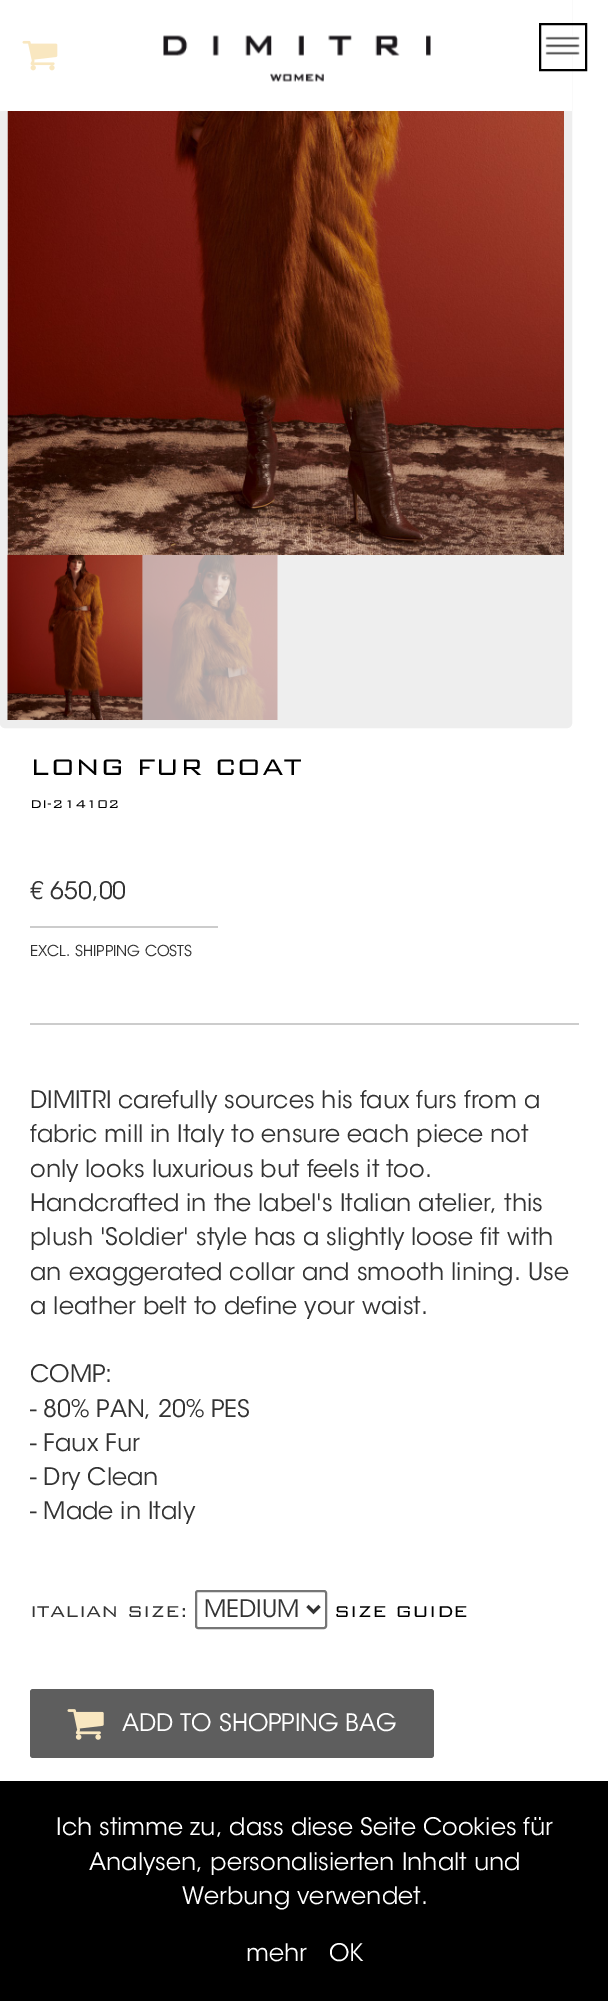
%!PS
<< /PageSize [608 2001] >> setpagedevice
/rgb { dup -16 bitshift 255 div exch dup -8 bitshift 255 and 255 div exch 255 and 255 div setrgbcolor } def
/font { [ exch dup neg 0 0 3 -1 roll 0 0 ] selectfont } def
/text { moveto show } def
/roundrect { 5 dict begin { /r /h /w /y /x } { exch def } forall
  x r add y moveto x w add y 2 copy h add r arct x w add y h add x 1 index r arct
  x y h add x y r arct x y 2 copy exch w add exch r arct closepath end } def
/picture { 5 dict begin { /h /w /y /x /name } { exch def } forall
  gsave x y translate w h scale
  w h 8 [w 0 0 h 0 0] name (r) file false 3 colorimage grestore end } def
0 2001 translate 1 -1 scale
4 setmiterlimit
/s1 { /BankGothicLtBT-Light 30 font 16#000000 rgb } def
/s2 { /BankGothicLtBT-Light 15 font 16#000000 rgb } def
/s3 { /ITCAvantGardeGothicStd-Light 24 font 16#333333 rgb } def
/s4 { /ITCAvantGardeGothicStd-Light 15 font 16#333333 rgb } def
/s5 { /BankGothicLtBT-Light 21 font 16#333333 rgb } def
/s6 { /BankGothicLtBT-Light 21 font 16#000000 rgb } def
/s7 { /ITCAvantGardeGothicStd-Light 24 font 16#FFFFFF rgb } def
16#FFFFFF rgb
0 0 608 2001 rectfill
16#EEEEEE rgb
4 -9 564 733 1 roundrect gsave fill grestore
8 setlinewidth
stroke
16#FFFFFF rgb
0 0 572 111 rectfill
(pic1.raw) 22 40 36 31 picture
(pic2.raw) 163 35 268 47 picture
16#000000 rgb
2 setlinewidth
540 24 46 46 rectstroke
(pic3.raw) 545 36 35 19 picture
(pic4.raw) 7 111 557 444 picture
(pic5.raw) 7 555 136 165 picture
(pic6.raw) 142 555 136 165 picture
s1
(LONG FUR COAT) 30 775 text
s2
(DI-214102) 30 808 text
s3
(€ 650,00) 30 899 text
16#CCCCCC rgb
30 926 188 2 rectfill
s4
(EXCL. SHIPPING COSTS) 30 956 text
16#CCCCCC rgb
30 1023 549 2 rectfill
s3
(DIMITRI carefully sources his faux furs from a) 30 1108 text
(fabric mill in Italy to ensure each piece not) 30 1142 text
(only looks luxurious but feels it too.) 30 1177 text
(Handcrafted in the label's Italian atelier, this) 30 1211 text
(plush 'Soldier' style has a slightly loose fit with) 30 1245 text
(an exaggerated collar and smooth lining. Use) 30 1280 text
(a leather belt to define your waist.) 30 1314 text
(COMP:) 30 1382 text
(- 80% PAN, 20% PES) 30 1417 text
(- Faux Fur) 30 1451 text
(- Dry Clean) 30 1485 text
(- Made in Italy) 30 1519 text
s5
(ITALIAN SIZE:) 30 1617 text
16#767676 rgb
196 1591 130 37 2 roundrect stroke
16#333333 rgb
3 setlinewidth
307.5 1606 moveto 313.5 1612 lineto 319.5 1606 lineto stroke
s3
(MEDIUM) 204 1617 text
s6
(SIZE GUIDE) 334 1617 text
16#5E5E5E rgb
30 1689 404 69 3 roundrect fill
(pic7.raw) 67 1709 37 31 picture
s7
(ADD TO SHOPPING BAG) 122 1731 text
16#000000 rgb
0 1781 608 220 rectfill
s7
(Ich stimme zu, dass diese Seite Cookies für) 56 1835 text
(Analysen, personalisierten Inhalt und) 89 1870 text
(Werbung verwendet.) 182 1904 text
(mehr) 246 1961 text
(OK) 329 1961 text
showpage
